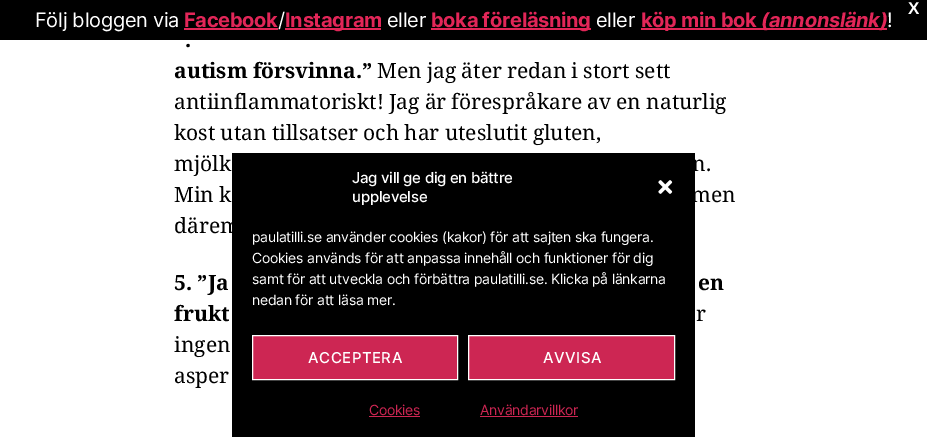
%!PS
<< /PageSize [927 437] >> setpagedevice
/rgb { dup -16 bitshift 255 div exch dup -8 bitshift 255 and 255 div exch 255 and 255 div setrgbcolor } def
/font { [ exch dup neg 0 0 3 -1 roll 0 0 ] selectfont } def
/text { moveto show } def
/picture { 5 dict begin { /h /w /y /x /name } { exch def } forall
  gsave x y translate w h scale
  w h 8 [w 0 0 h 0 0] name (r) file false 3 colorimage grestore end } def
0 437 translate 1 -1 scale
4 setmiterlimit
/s1 { /NotoSerif-Bold 21 font 16#000000 rgb } def
/s2 { /NotoSerif-Regular 21 font 16#000000 rgb } def
16#FFFFFF rgb
0 0 927 437 rectfill
16#000000 rgb
0 0 927 40 rectfill
/LiberationSans-Bold 17 font
16#FFFFFF rgb
908 14 moveto -0.27 0 (X) ashow
/Inter-Regular 20 font
35 27 moveto -0.27 0 (Följ bloggen via) ashow
/Inter-Bold 20 font
16#E22658 rgb
184 27 moveto -0.27 0 (Facebook) ashow
184 28 94 2 rectfill
/Inter-Regular 20 font
16#FFFFFF rgb
278 27 moveto -0.27 0 (/) ashow
16#E22658 rgb
285 28 96 2 rectfill
/Inter-Bold 20 font
285 27 moveto -0.27 0 (Instagram) ashow
/Inter-Regular 20 font
16#FFFFFF rgb
387 27 moveto -0.27 0 (eller) ashow
16#E22658 rgb
431 28 160 2 rectfill
/Inter-Bold 20 font
431 27 moveto -0.27 0 (boka föreläsning) ashow
/Inter-Regular 20 font
16#FFFFFF rgb
596 27 moveto -0.27 0 (eller) ashow
16#E22658 rgb
641 28 246 2 rectfill
/Inter-Bold 20 font
641 27 moveto -0.27 0 (köp min bok) ashow
/Inter-BoldItalic 20 font
761 27 moveto -0.27 0 (\(annonslänk\)) ashow
/Inter-Regular 20 font
16#FFFFFF rgb
887 27 moveto -0.27 0 (!) ashow
/NotoSerif-Bold 21 font
16#000000 rgb
185 47 moveto -0.25 0 32 (.) widthshow
(autism försvinna.”) 174 78 text
/NotoSerif-Regular 21 font
377 78 moveto -0.25 0 32 (Men jag äter redan i stort sett) widthshow
174 109 moveto -0.25 0 32 (antiinflammatoriskt! Jag är förespråkare av en naturlig) widthshow
174 140 moveto -0.25 0 32 (kost utan tillsatser och har uteslutit gluten,) widthshow
174 171 moveto -0.25 0 32 (mjölk) widthshow
692 171 moveto -0.25 0 32 (n.) widthshow
174 202 moveto -0.25 0 32 (Min k) widthshow
691 202 moveto -0.25 0 32 (men) widthshow
174 233 moveto -0.25 0 32 (därem) widthshow
/NotoSerif-Bold 21 font
174 290 moveto -0.25 0 32 (5. ”Ja) widthshow
698 290 moveto -0.25 0 32 (en) widthshow
(frukt) 174 321 text
/NotoSerif-Regular 21 font
696 321 moveto -0.25 0 32 (r) widthshow
174 352 moveto -0.25 0 32 (ingen) widthshow
(asper) 174 383 text
232 153 463 284 rectfill
/Inter-Medium 15 font
16#FFFFFF rgb
352 183 moveto -0.27 0 (Jag vill ge dig en bättre) ashow
352 202 moveto -0.27 0 (upplevelse) ashow
(pic1.raw) 658 180 15 14 picture
/Inter-Regular 14 font
252 242 moveto -0.27 0 (paulatilli.se använder cookies \(kakor\) för att sajten ska fungera.) ashow
252 263 moveto -0.27 0 (Cookies används för att anpassa innehåll och funktioner för dig) ashow
252 284 moveto -0.27 0 (samt för att utveckla och förbättra paulatilli.se. Klicka på länkarna) ashow
252 305 moveto -0.27 0 (nedan för att läsa mer.) ashow
16#CD2653 rgb
252.5 335.5 moveto 457.5 335.5 lineto 457.5 379.5 lineto 252.5 379.5 lineto closepath gsave fill grestore
16#FFFFFF rgb
stroke
/Inter-Medium 15 font
308 363 moveto 0.5 0 (ACCEPTERA) ashow
16#CD2653 rgb
468.5 335.5 moveto 674.5 335.5 lineto 674.5 379.5 lineto 468.5 379.5 lineto closepath gsave fill grestore
16#FFFFFF rgb
stroke
543 363 moveto 0.5 0 (AVVISA) ashow
/Inter-Regular 14 font
16#CD2653 rgb
369 415 moveto -0.27 0 (Cookies) ashow
369 416 51 1 rectfill
480 415 moveto -0.27 0 (Användarvillkor) ashow
480 416 98 1 rectfill
showpage
